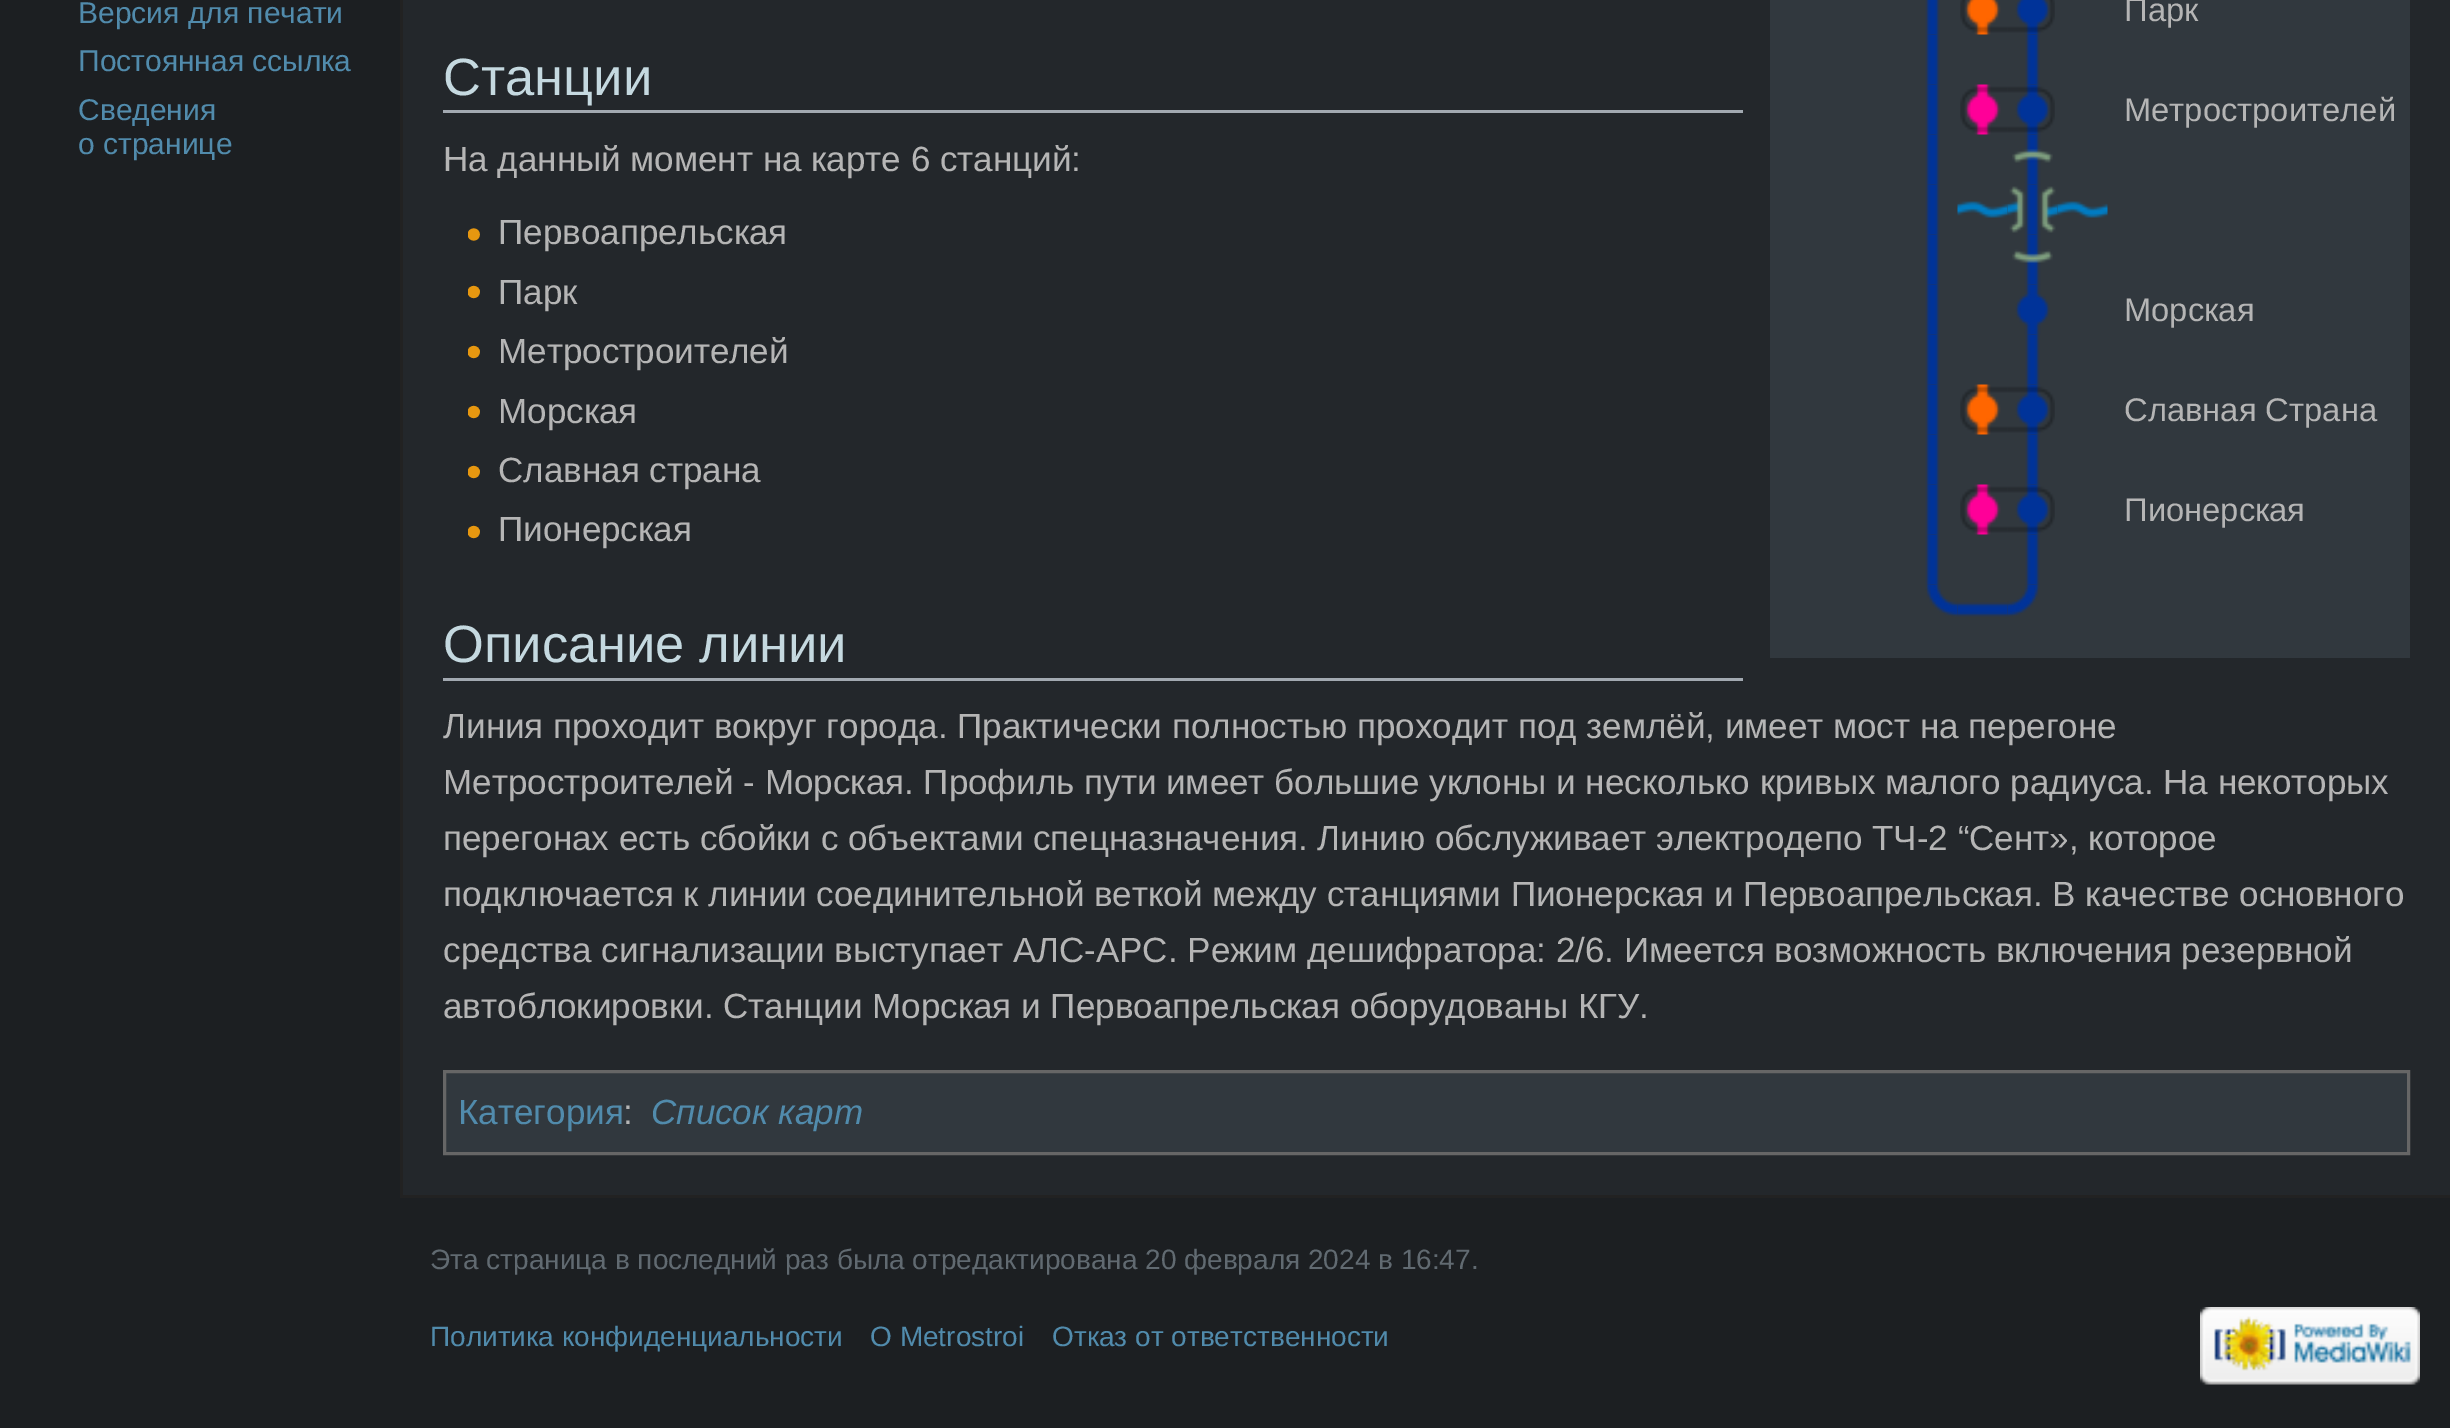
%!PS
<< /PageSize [2450 1428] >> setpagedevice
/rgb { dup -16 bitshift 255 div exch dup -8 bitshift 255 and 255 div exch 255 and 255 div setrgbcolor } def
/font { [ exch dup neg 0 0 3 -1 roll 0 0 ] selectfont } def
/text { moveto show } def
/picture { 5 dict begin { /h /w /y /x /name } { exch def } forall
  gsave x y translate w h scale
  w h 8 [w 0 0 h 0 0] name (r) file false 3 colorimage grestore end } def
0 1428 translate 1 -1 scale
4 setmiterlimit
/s1 { /LiberationSans-Regular 30 font 16#518BAC rgb } def
/s2 { /LiberationSans-Regular 52.5 font 16#C5D9E0 rgb } def
/s3 { /LiberationSans-Regular 32.75 font 16#B5B5B5 rgb } def
/s4 { /LiberationSans-Regular 35 font 16#B5B5B5 rgb } def
/s5 { /LiberationSans-Regular 35 font 16#518BAC rgb } def
/s6 { /LiberationSans-Italic 35 font 16#518BAC rgb } def
/s7 { /LiberationSans-Regular 28 font 16#616A71 rgb } def
/s8 { /LiberationSans-Regular 28 font 16#518BAC rgb } def
16#1C1F22 rgb
0 0 2450 1428 rectfill
s1
(Версия для печати) 78 23 text
(Постоянная ссылка) 78 71 text
(Сведения) 78 120 text
(о странице) 78 154 text
16#23272B rgb
403 0 2047 1195 rectfill
16#222222 rgb
400 1195 2050 3 rectfill
400 0 3 1198 rectfill
16#A2A9B1 rgb
443 110 1300 3 rectfill
s2
(Станции) 443 95 text
16#31383E rgb
1770 0 640 658 rectfill
(pic1.raw) 1925 0 15 35 picture
(pic3.raw) 1964 0 37 35 picture
(pic2.raw) 1960 0 48 33 picture
(pic5.raw) 2015 0 35 35 picture
(pic4.raw) 2007 0 48 33 picture
s3
(Парк) 2124 21 text
(pic6.raw) 1925 34 15 51 picture
(pic6.raw) 2025 34 15 51 picture
(pic6.raw) 1925 84 15 51 picture
(pic7.raw) 1965 84 36 51 picture
(pic8.raw) 1960 86 48 47 picture
(pic9.raw) 2015 84 35 51 picture
(pic10.raw) 2007 86 48 47 picture
(Метростроителей) 2124 121 text
(pic6.raw) 1925 134 15 51 picture
(pic11.raw) 2012 134 41 51 picture
(pic6.raw) 1925 184 15 51 picture
(pic12.raw) 1957 201 51 17 picture
(pic13.raw) 2007 184 51 51 picture
(pic14.raw) 2057 201 51 17 picture
(pic6.raw) 1925 234 15 51 picture
(pic15.raw) 2012 234 41 51 picture
(pic6.raw) 1925 284 15 51 picture
(pic16.raw) 2015 284 35 51 picture
(Морская) 2124 321 text
(pic6.raw) 1925 334 15 51 picture
(pic6.raw) 2025 334 15 51 picture
(pic6.raw) 1925 384 15 51 picture
(pic17.raw) 1964 384 37 51 picture
(pic18.raw) 1960 386 48 47 picture
(pic9.raw) 2015 384 35 51 picture
(pic10.raw) 2007 386 48 47 picture
(Славная Страна) 2124 421 text
(pic6.raw) 1925 434 15 51 picture
(pic6.raw) 2025 434 15 51 picture
(pic6.raw) 1925 484 15 51 picture
(pic7.raw) 1965 484 36 51 picture
(pic8.raw) 1960 486 48 47 picture
(pic9.raw) 2015 484 35 51 picture
(pic10.raw) 2007 486 48 47 picture
(Пионерская) 2124 521 text
(pic6.raw) 1925 534 15 51 picture
(pic6.raw) 2025 534 15 51 picture
(pic19.raw) 1925 584 33 33 picture
(pic20.raw) 1957 602 51 15 picture
(pic21.raw) 2007 584 33 33 picture
s4
(На данный момент на карте 6 станций:) 443 171 text
(pic22.raw) 468 228 12 13 picture
(Первоапрельская) 498 244 text
(pic23.raw) 468 285 12 14 picture
(Парк) 498 304 text
(pic23.raw) 468 345 12 14 picture
(Метростроителей) 498 363 text
(pic23.raw) 468 405 12 14 picture
(Морская) 498 423 text
(pic23.raw) 468 465 12 14 picture
(Славная страна) 498 482 text
(pic23.raw) 468 525 12 14 picture
(Пионерская) 498 541 text
16#A2A9B1 rgb
443 678 1300 3 rectfill
s2
(Описание линии) 443 662 text
s4
(Линия проходит вокруг города. Практически полностью проходит под землёй, имеет мост на перегоне) 443 738 text
(Метростроителей - Морская. Профиль пути имеет большие уклоны и несколько кривых малого радиуса. На некоторых) 443 794 text
(перегонах есть сбойки с объектами спецназначения. Линию обслуживает электродепо ТЧ-2 “Сент», которое) 443 850 text
(подключается к линии соединительной веткой между станциями Пионерская и Первоапрельская. В качестве основного) 443 906 text
(средства сигнализации выступает АЛС-АРС. Режим дешифратора: 2/6. Имеется возможность включения резервной) 443 962 text
(автоблокировки. Станции Морская и Первоапрельская оборудованы КГУ.) 443 1018 text
16#31383E rgb
444.5 1071.5 moveto 2408.5 1071.5 lineto 2408.5 1153.5 lineto 444.5 1153.5 lineto closepath gsave fill grestore
16#666666 rgb
3 setlinewidth
stroke
s5
(Категория) 458 1124 text
s4
(:) 623 1124 text
s6
(Список карт) 651 1124 text
s7
(Эта страница в последний раз была отредактирована 20 февраля 2024 в 16:47.) 430 1269 text
s8
(Политика конфиденциальности) 430 1346 text
(О Metrostroi) 870 1346 text
(Отказ от ответственности) 1052 1346 text
(pic24.raw) 2200 1307 220 78 picture
showpage
